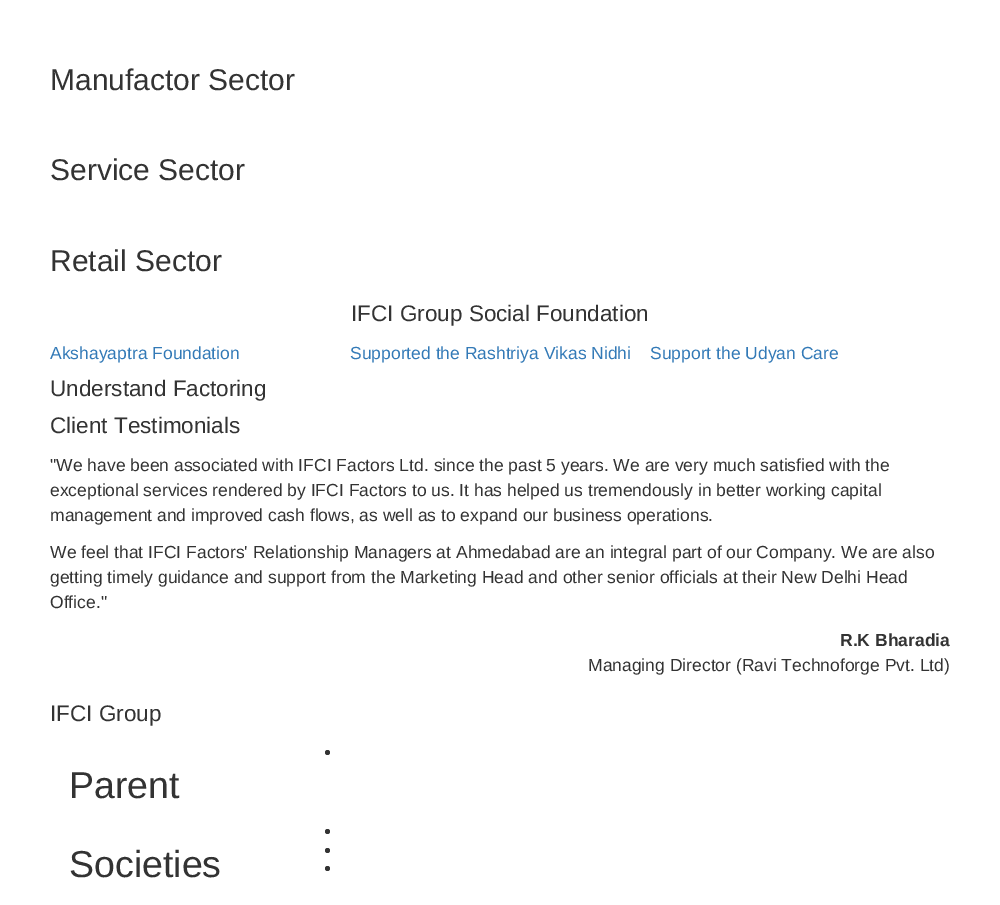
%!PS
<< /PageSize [1000 905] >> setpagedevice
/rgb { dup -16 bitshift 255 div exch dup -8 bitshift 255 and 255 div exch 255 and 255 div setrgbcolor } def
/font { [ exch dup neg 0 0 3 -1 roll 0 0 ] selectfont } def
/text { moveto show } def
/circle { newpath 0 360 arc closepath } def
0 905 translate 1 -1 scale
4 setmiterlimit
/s1 { /LiberationSans-Regular 30 font 16#333333 rgb } def
/s2 { /LiberationSans-Regular 22.5 font 16#333333 rgb } def
/s3 { /LiberationSans-Regular 17.5 font 16#337AB7 rgb } def
/s4 { /LiberationSans-Regular 17.5 font 16#333333 rgb } def
/s5 { /LiberationSans-Bold 17.5 font 16#333333 rgb } def
/s6 { /LiberationSans-Regular 37.5 font 16#333333 rgb } def
16#FFFFFF rgb
0 0 1000 905 rectfill
s1
(Manufactor Sector) 50 90 text
(Service Sector) 50 180 text
(Retail Sector) 50 271 text
s2
(IFCI Group Social Foundation) 351 321 text
s3
(Akshayaptra Foundation) 50 359 text
(Supported the Rashtriya Vikas Nidhi) 350 359 text
(Support the Udyan Care) 650 359 text
s2
(Understand Factoring) 50 396 text
(Client Testimonials) 50 433 text
s4
("We have been associated with IFCI Factors Ltd. since the past 5 years. We are very much satisfied with the) 50 471 text
(exceptional services rendered by IFCI Factors to us. It has helped us tremendously in better working capital) 50 496 text
(management and improved cash flows, as well as to expand our business operations.) 50 521 text
(We feel that IFCI Factors' Relationship Managers at Ahmedabad are an integral part of our Company. We are also) 50 558 text
(getting timely guidance and support from the Marketing Head and other senior officials at their New Delhi Head) 50 583 text
(Office.") 50 608 text
s5
(R.K Bharadia) 840 646 text
s4
(Managing Director \(Ravi Technoforge Pvt. Ltd\)) 588 671 text
s2
(IFCI Group) 50 721 text
327.5 752.5 2.5 circle fill
s6
(Parent) 69 798 text
(Societies) 69 877 text
327.5 831.5 2.5 circle fill
327.5 850.5 2.5 circle fill
327.5 868.5 2.5 circle fill
showpage
